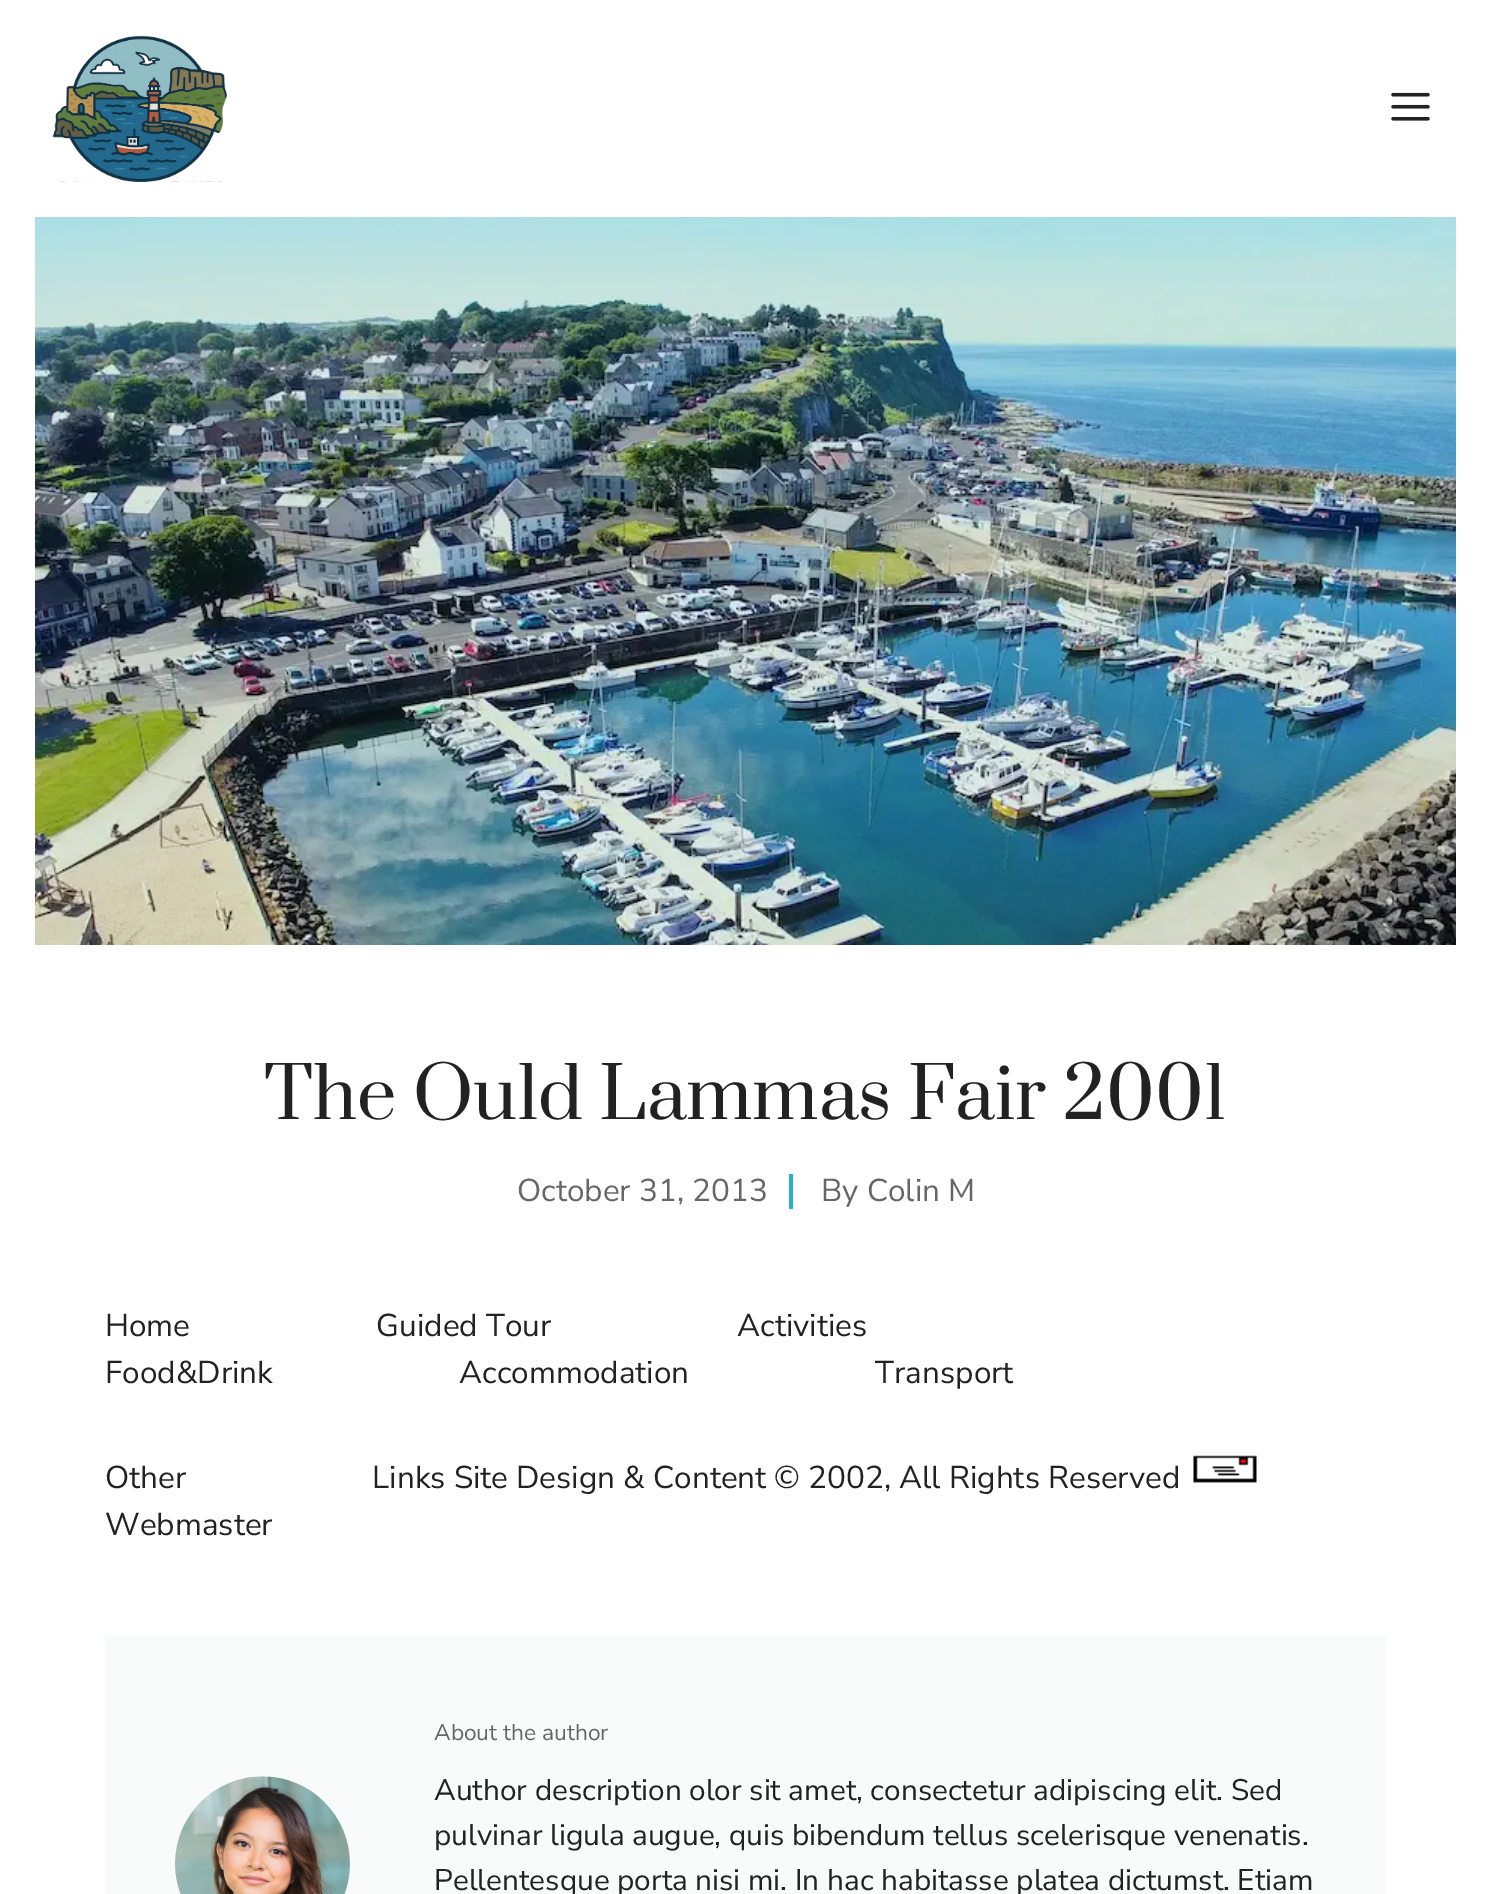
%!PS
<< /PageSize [1490 1894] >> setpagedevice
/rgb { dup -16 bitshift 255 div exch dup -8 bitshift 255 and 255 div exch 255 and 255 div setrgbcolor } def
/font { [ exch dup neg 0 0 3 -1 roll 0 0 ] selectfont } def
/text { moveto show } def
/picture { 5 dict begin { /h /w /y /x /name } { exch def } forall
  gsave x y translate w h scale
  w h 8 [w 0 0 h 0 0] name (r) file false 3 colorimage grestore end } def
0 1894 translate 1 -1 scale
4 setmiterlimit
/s1 { /Prata-Regular 70 font 16#222222 rgb } def
/s2 { /NunitoSans-Regular 31.5 font 16#666666 rgb } def
/s3 { /NunitoSans-Regular 31.5 font 16#222222 rgb } def
/s4 { /NunitoSans-Regular 22.75 font 16#666666 rgb } def
/s5 { /NunitoSans-Regular 29.75 font 16#222222 rgb } def
16#FFFFFF rgb
0 0 1490 1894 rectfill
(pic1.raw) 52 35 175 147 picture
(pic2.raw) 1391 92 39 29 picture
(pic3.raw) 35 217 1421 728 picture
s1
(The Ould Lammas Fair 2001) 264 1119 text
s2
(October 31, 2013) 517 1201 text
16#29B1CC rgb
789 1174 4 35 rectfill
s2
(By Colin M) 821 1201 text
s3
(Home                       Guided Tour                       Activities) 105 1336 text
(Food&Drink                       Accommodation                       Transport) 105 1383 text
(Other                       Links Site Design & Content © 2002, All Rights Reserved) 105 1488 text
(pic4.raw) 1193 1455 64 28 picture
(Webmaster) 105 1535 text
16#F9FAFA rgb
105 1636 1281 258 rectfill
(pic5.raw) 175 1776 175 118 picture
s4
(About the author) 434 1740 text
s5
(Author description olor sit amet, consectetur adipiscing elit. Sed) 434 1800 text
(pulvinar ligula augue, quis bibendum tellus scelerisque venenatis.) 434 1845 text
(Pellentesque porta nisi mi. In hac habitasse platea dictumst. Etiam) 434 1890 text
showpage
